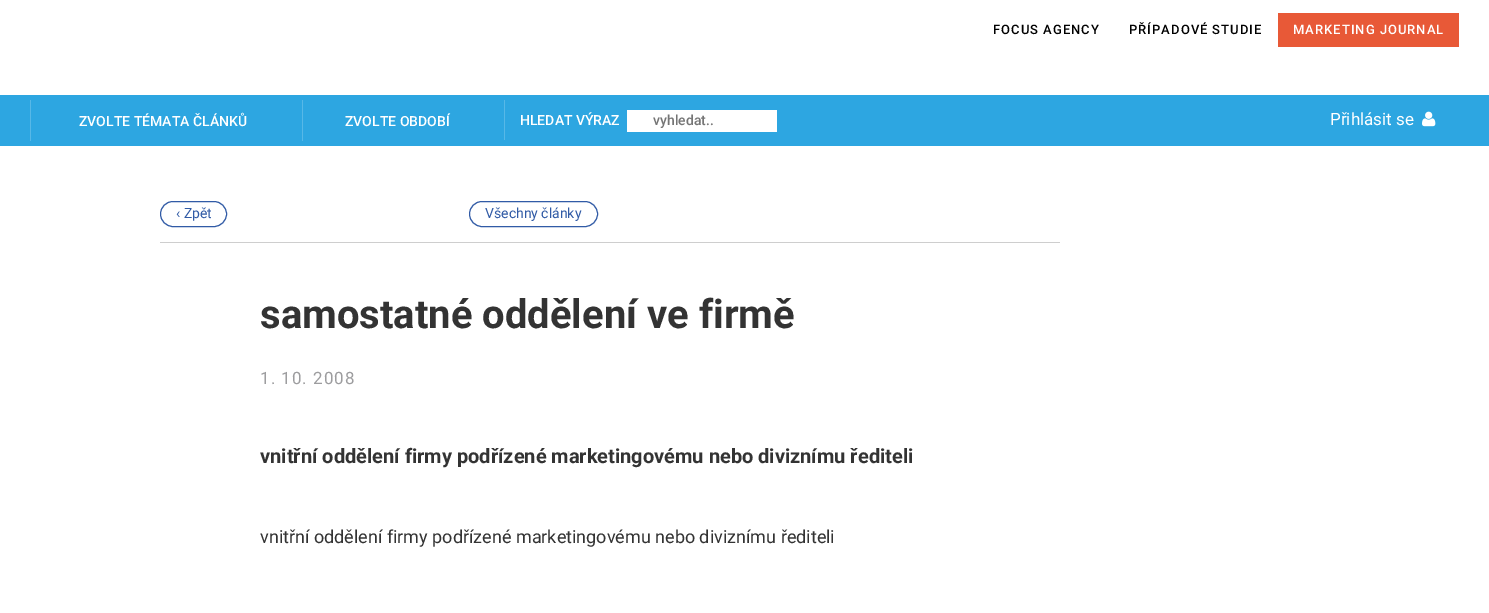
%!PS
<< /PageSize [1489 613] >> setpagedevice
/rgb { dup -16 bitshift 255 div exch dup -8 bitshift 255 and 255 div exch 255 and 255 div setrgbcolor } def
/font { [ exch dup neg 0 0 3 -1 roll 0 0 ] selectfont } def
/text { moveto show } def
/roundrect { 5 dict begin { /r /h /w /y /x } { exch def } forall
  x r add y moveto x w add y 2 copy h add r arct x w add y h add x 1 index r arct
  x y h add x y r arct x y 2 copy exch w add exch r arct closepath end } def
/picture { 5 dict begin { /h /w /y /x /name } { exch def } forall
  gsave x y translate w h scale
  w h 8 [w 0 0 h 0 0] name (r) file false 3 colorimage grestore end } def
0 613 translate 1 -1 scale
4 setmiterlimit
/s1 { /Roboto-Medium 14 font 16#FFFFFF rgb } def
/s2 { /Roboto-Medium 14 font 16#757575 rgb } def
/s3 { /Roboto-Regular 17 font 16#FFFFFF rgb } def
/s4 { /Roboto-Regular 14 font 16#315BA6 rgb } def
/s5 { /Roboto-Bold 40 font 16#333333 rgb } def
/s6 { /Roboto-Bold 20 font 16#333333 rgb } def
/s7 { /Roboto-Regular 18 font 16#333333 rgb } def
16#FFFFFF rgb
0 0 1489 613 rectfill
/Roboto-Medium 13 font
16#000000 rgb
993 34 moveto 1 0 (FOCUS AGENCY) ashow
1129 34 moveto 1 0 (PŘÍPADOVÉ STUDIE) ashow
16#E85937 rgb
1278 13 181 34 rectfill
16#FFFFFF rgb
1293 34 moveto 1 0 (MARKETING JOURNAL) ashow
16#2DA6E1 rgb
0 95 1489 51 rectfill
16#57B8E7 rgb
30 100 1 41 rectfill
s1
(ZVOLTE TÉMATA ČLÁNKŮ) 79 126 text
16#57B8E7 rgb
302 100 1 41 rectfill
s1
(ZVOLTE OBDOBÍ) 345 126 text
16#57B8E7 rgb
504 100 1 40 rectfill
s1
(HLEDAT VÝRAZ) 520 125 text
627 110 150 22 rectfill
s2
(vyhledat..) 653 125 text
s3
(Přihlásit se) 1330 125 text
(pic1.raw) 1422 111 14 16 picture
16#CECECE rgb
160 242 900 1 rectfill
16#315BA6 rgb
160.5 201.5 66 25 12.5 roundrect stroke
s4
(‹ Zpět) 176 218 text
469.5 201.5 128 25 12.5 roundrect stroke
(Všechny články) 485 218 text
s5
(samostatné oddělení ve firmě) 260 328 text
/Roboto-Regular 17 font
16#9D9D9F rgb
260 384 moveto 1 0 (1. 10. 2008) ashow
s6
(vnitřní oddělení firmy podřízené marketingovému nebo diviznímu řediteli) 260 463 text
s7
(vnitřní oddělení firmy podřízené marketingovému nebo diviznímu řediteli) 260 543 text
showpage
